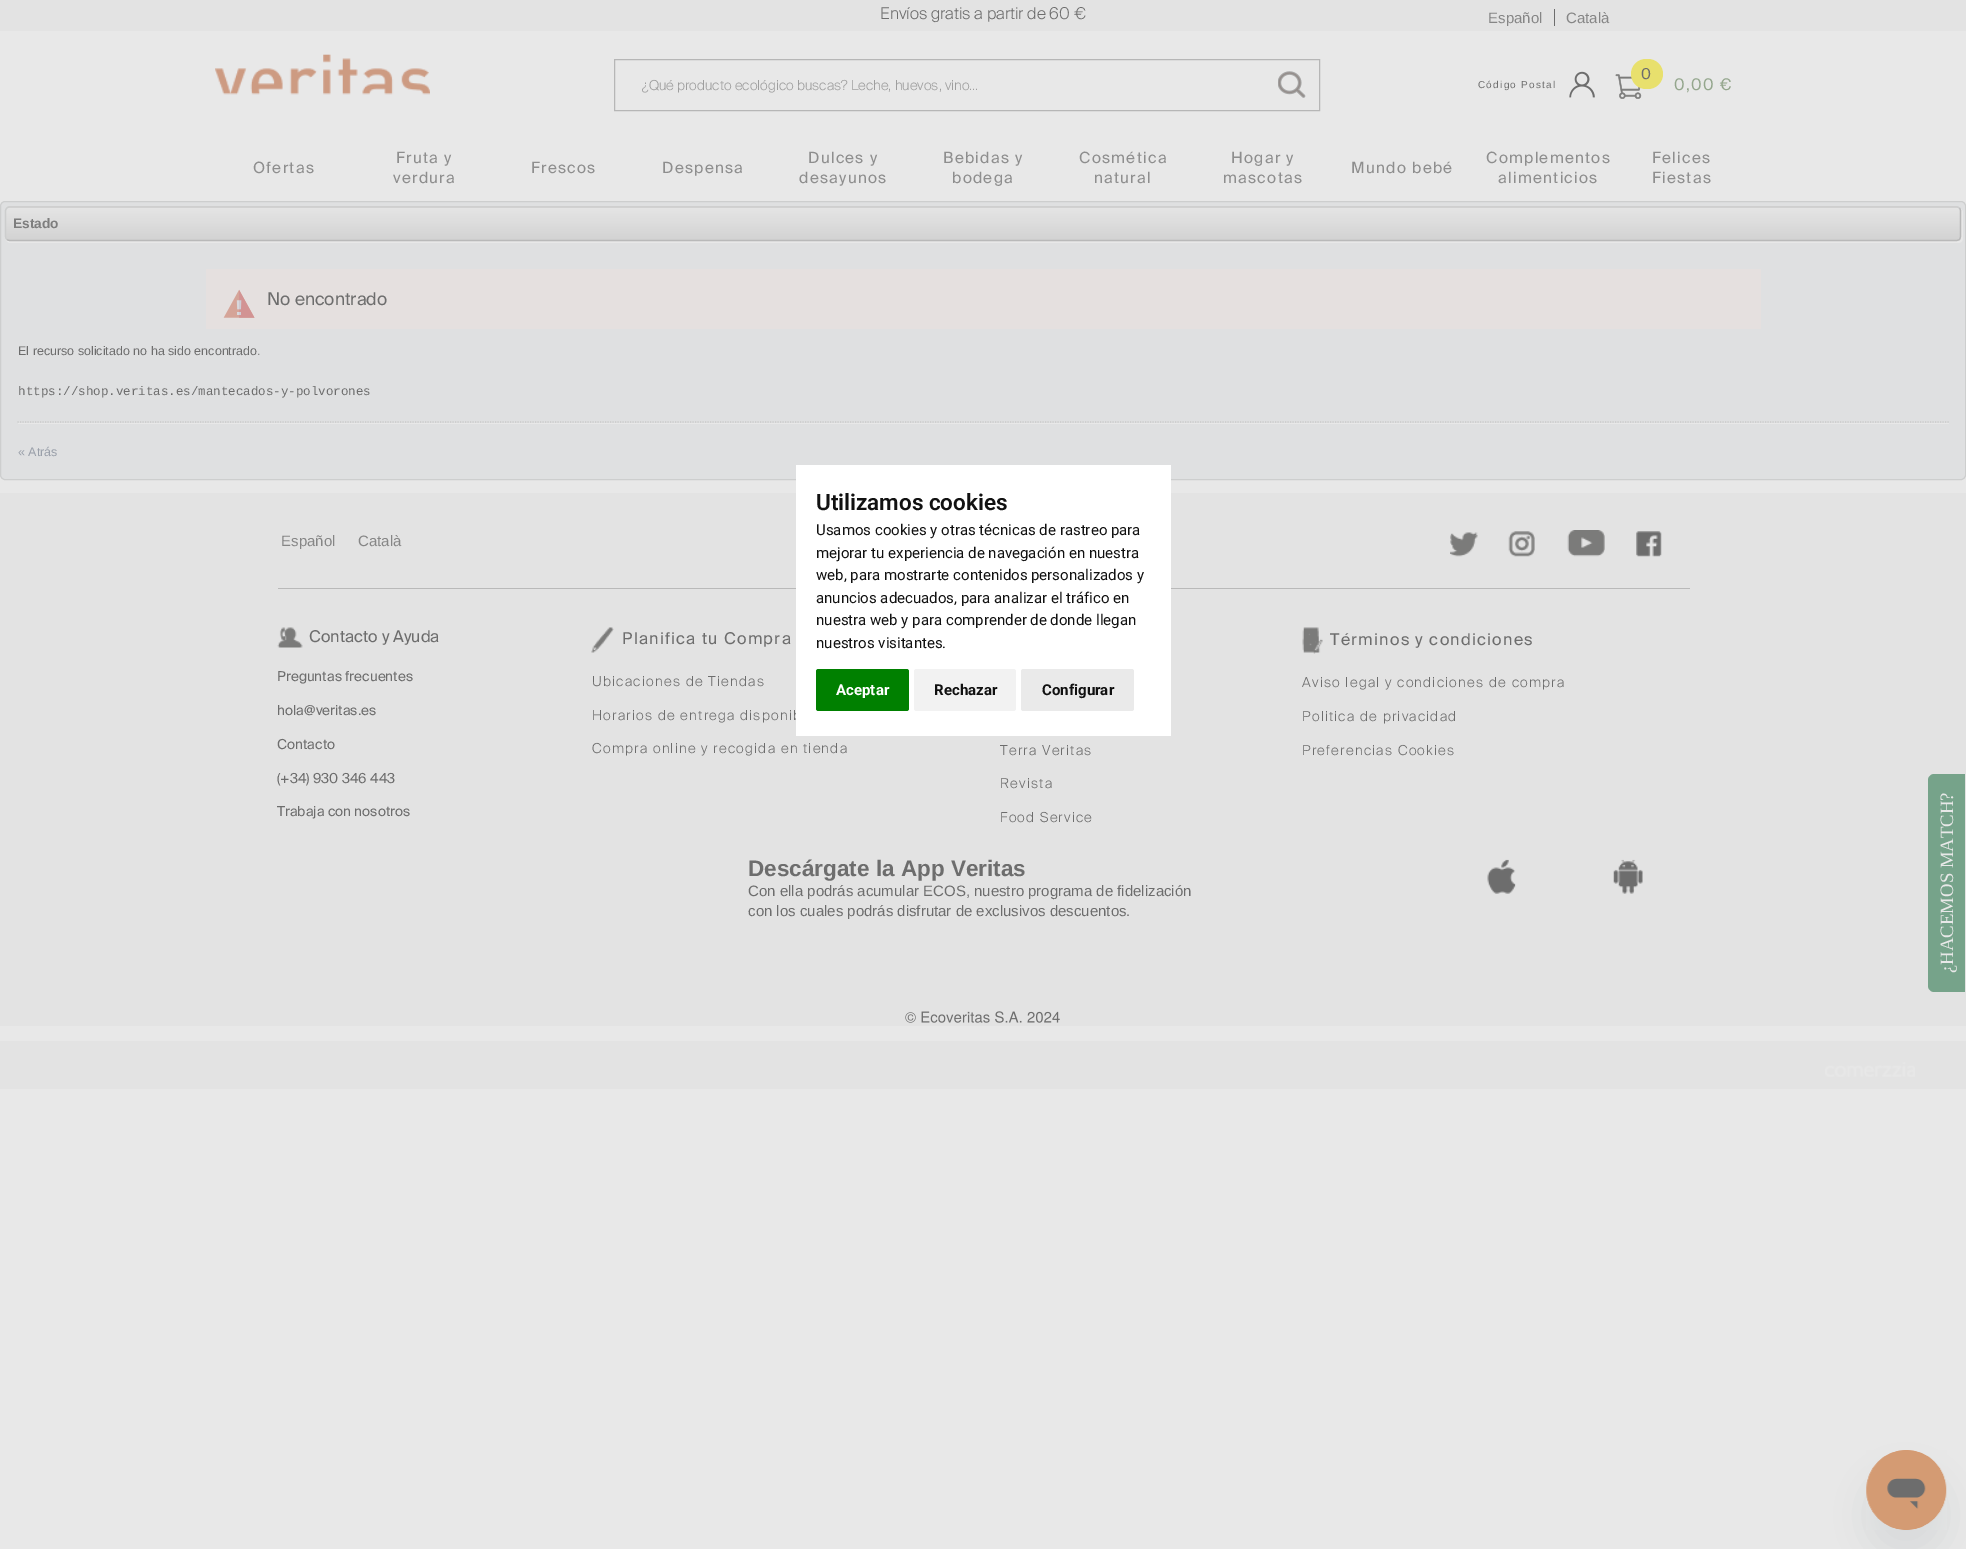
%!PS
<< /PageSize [1966 1549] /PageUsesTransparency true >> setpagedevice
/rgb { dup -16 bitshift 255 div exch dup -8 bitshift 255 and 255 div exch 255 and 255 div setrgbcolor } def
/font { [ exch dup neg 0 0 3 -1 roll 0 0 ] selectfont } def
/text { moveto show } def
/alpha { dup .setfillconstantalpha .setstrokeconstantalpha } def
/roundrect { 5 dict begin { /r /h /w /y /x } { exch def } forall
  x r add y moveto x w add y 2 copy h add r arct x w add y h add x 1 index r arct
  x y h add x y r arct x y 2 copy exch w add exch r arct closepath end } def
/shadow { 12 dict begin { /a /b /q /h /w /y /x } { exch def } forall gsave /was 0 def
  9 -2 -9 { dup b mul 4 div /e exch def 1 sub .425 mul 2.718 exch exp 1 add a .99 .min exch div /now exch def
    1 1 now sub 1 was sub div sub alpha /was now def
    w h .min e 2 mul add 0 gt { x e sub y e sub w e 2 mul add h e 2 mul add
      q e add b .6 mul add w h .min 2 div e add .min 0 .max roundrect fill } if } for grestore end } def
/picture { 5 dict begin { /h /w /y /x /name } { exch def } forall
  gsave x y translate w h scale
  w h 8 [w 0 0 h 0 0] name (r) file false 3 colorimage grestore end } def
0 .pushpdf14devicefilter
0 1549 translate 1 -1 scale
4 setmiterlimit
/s1 { /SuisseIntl-Light 16.25 font 16#6D6D6D rgb } def
/s2 { /LiberationSans-Regular 15 font 16#868686 rgb } def
/s3 { /SuisseIntl-Light 13.75 font 16#9E9E9E rgb } def
/s4 { /LiberationSans-Bold 13.75 font 16#7E7E7E rgb } def
/s5 { /SuisseIntl-Regular 17.5 font 16#6D6D6D rgb } def
/s6 { /LiberationSans-Regular 12.5 font 16#6D6D6D rgb } def
/s7 { /LiberationMono-Regular 12.5 font 16#6D6D6D rgb } def
/s8 { /LiberationSans-Regular 12.5 font 16#999FA9 rgb } def
/s9 { /Roboto-SemiBold 22.5 font 16#111111 rgb } def
/s10 { /Roboto-Regular 15 font 16#111111 rgb } def
/s11 { /Roboto-Bold 15 font 16#FFFFFF rgb } def
/s12 { /Roboto-Bold 15 font 16#111111 rgb } def
/s13 { /SuisseIntl-Regular 16.25 font 16#6D6D6D rgb } def
/s14 { /SuisseIntl-Regular 13.75 font 16#6D6D6D rgb } def
/s15 { /LiberationSans-Bold 22.5 font 16#6D6D6D rgb } def
/s16 { /LiberationSans-Regular 15 font 16#6D6D6D rgb } def
16#E8E8E8 rgb
0 0 1966 1549 rectfill
16#E3E3E3 rgb
0 0 1966 31 rectfill
s1
(Envíos gratis a partir de 60 €) 880 19 text
s2
(Español) 1488 23 text
16#6D6D6D rgb
1554 9 1 17 rectfill
s2
(Català) 1566 23 text
(pic1.raw) 215 54 215 41 picture
16#B6B6B6 rgb
614.5 59.5 705 51 rectstroke
s3
(¿Qué producto ecológico buscas? Leche, huevos, vino...) 642 90 text
(pic2.raw) 1278 71 28 27 picture
/LiberationSans-Regular 10 font
16#6D6D6D rgb
1478 88 moveto 1.25 0 (Código Postal) ashow
(pic3.raw) 1569 71 26 27 picture
(pic4.raw) 1615 74 27 25 picture
16#E8E06D rgb
1631 59 32 30 15 roundrect fill
/SuisseIntl-Regular 15 font
16#6D6D6D rgb
1641 79 moveto 1.25 0 (0) ashow
/SuisseIntl-Regular 16 font
16#94A68D rgb
1674 90 moveto 1.25 0 (0,00 €) ashow
/SuisseIntl-Regular 15.5 font
16#8E8E8E rgb
253 173 moveto 1.25 0 (Ofertas) ashow
396 163 moveto 1.25 0 (Fruta y) ashow
393 183 moveto 1.25 0 (verdura) ashow
531 173 moveto 1.25 0 (Frescos) ashow
662 173 moveto 1.25 0 (Despensa) ashow
808 163 moveto 1.25 0 (Dulces y) ashow
799 183 moveto 1.25 0 (desayunos) ashow
943 163 moveto 1.25 0 (Bebidas y) ashow
952 183 moveto 1.25 0 (bodega) ashow
1079 163 moveto 1.25 0 (Cosmética) ashow
1094 183 moveto 1.25 0 (natural) ashow
1231 163 moveto 1.25 0 (Hogar y) ashow
1223 183 moveto 1.25 0 (mascotas) ashow
1351 173 moveto 1.25 0 (Mundo bebé) ashow
1486 163 moveto 1.25 0 (Complementos) ashow
1498 183 moveto 1.25 0 (alimenticios) ashow
1652 163 moveto 1.25 0 (Felices) ashow
1652 183 moveto 1.25 0 (Fiestas) ashow
16#DFE0E1 rgb
0.5 201.5 1965 278 4.5 roundrect gsave fill grestore
16#CDCECE rgb
stroke
16#E8E8E8 rgb
6 240 moveto 7 242 9 243 11 243 curveto 1958 243 lineto 1961 243 1963 241 1963 238 curveto 1963 213 lineto 1963 211 1962 210 1961 209 curveto 1961 211 lineto 1961 236 lineto 1961 239 1959 241 1956 241 curveto 10 241 lineto 9 241 7 241 6 240 curveto closepath fill
16#D3D3D3 rgb
5 206 1956 35 5 roundrect fill
(pic5.raw) 5 207 1956 33 picture
16#B9B9B9 rgb
1.2 setlinewidth
1959.5 208 moveto 1960 209 1960.5 210 1960.5 211 curveto 1960.5 236 lineto 1960.5 237.5 1960 238.5 1959.5 239.5 curveto 1958.5 240 1957.5 240.5 1956 240.5 curveto 10 240.5 lineto 9 240.5 7.5 240 7 239.5 curveto stroke
16#CDCECE rgb
7 239.5 moveto 6 238.5 5.5 237.5 5.5 236 curveto 5.5 211 lineto 5.5 210 6 209 7 208 curveto 7.5 207.5 9 207 10 207 curveto 1956 207 lineto 1957.5 207 1958.5 207.5 1959.5 208 curveto stroke
s4
(Estado) 13 228 text
16#E5E0DF rgb
206 269 1555 60 rectfill
(pic6.raw) 223 289 32 29 picture
s5
(No encontrado) 267 305 text
s6
(El recurso solicitado no ha sido encontrado.) 18 355 text
s7
(https://shop.veritas.es/mantecados-y-polvorones) 18 395 text
16#C9C9C9 rgb
[1.25 1.25] 0 setdash
17.5 422 moveto 1949 422 lineto stroke
16#E8E8E8 rgb
18 423 1931 1 rectfill
s8
(« Atrás) 18 456 text
16#E3E3E3 rgb
0 493 1966 533 rectfill
16#B9B9B9 rgb
278 588 1412 1 rectfill
/SuisseIntl-Light 13.75 font
16#6D6D6D rgb
592 720 moveto 1.25 0 (Horarios de entrega disponib) ashow
16#FFFFFF rgb
796 465 375 271 rectfill
s9
(Utilizamos cookies) 816 510 text
s10
(Usamos cookies y otras técnicas de rastreo para) 816 535 text
(mejorar tu experiencia de navegación en nuestra) 816 558 text
(web, para mostrarte contenidos personalizados y) 816 580 text
(anuncios adecuados, para analizar el tráfico en) 816 603 text
(nuestra web y para comprender de donde llegan) 816 625 text
(nuestros visitantes.) 816 648 text
16#008000 rgb
816 669 93 42 2.5 roundrect fill
s11
(Aceptar) 836 695 text
16#F2F2F2 rgb
914 669 102 42 2.5 roundrect fill
s12
(Rechazar) 934 695 text
16#EAEAEA rgb
1021 669 113 42 2.5 roundrect fill
s12
(Configurar) 1042 695 text
s2
(Español) 281 546 text
(Català) 358 546 text
(pic7.raw) 1450 532 28 25 picture
(pic8.raw) 1508 531 27 26 picture
(pic9.raw) 1567 530 38 27 picture
(pic10.raw) 1636 531 26 26 picture
(pic11.raw) 277 627 26 21 picture
s13
(Contacto y Ayuda) 309 642 text
s14
(Preguntas frecuentes) 277 681 text
(hola@veritas.es) 277 715 text
(Contacto) 277 749 text
(\(+34\) 930 346 443) 277 783 text
(Trabaja con nosotros) 277 816 text
(pic12.raw) 591 627 23 26 picture
/SuisseIntl-Regular 16.25 font
622 644 moveto 1.25 0 (Planifica tu Compra) ashow
/SuisseIntl-Light 13.75 font
592 686 moveto 1.25 0 (Ubicaciones de Tiendas) ashow
592 753 moveto 1.25 0 (Compra online y recogida en tienda) ashow
(pic13.raw) 1302 627 21 27 picture
/SuisseIntl-Regular 16.25 font
1330 645 moveto 1.25 0 (Términos y condiciones) ashow
/SuisseIntl-Light 13.75 font
1302 687 moveto 1.25 0 (Aviso legal y condiciones de compra) ashow
1302 721 moveto 1.25 0 (Politica de privacidad) ashow
1302 755 moveto 1.25 0 (Preferencias Cookies) ashow
1000 755 moveto 1.25 0 (Terra Veritas) ashow
1000 788 moveto 1.25 0 (Revista) ashow
1000 822 moveto 1.25 0 (Food Service) ashow
s15
(Descárgate la App Veritas) 748 876 text
s16
(Con ella podrás acumular ECOS, nuestro programa de fidelización) 748 896 text
(con los cuales podrás disfrutar de exclusivos descuentos.) 748 916 text
(pic14.raw) 1487 859 29 35 picture
(pic15.raw) 1613 859 30 35 picture
(pic16.raw) 905 1011 155 12 picture
16#E3E3E3 rgb
0 1041 1966 48 rectfill
(pic17.raw) 1825 1062 90 15 picture
16#76A38A rgb
1928 986 moveto 1928 780 lineto 1928 777 1931 774 1934 774 curveto 1965 774 lineto 1965 992 lineto 1934 992 lineto 1931 992 1928 989 1928 986 curveto closepath fill
/LiberationSerif-Regular 18.75 font
16#E8E8E8 rgb
gsave 1953 973 translate -90 rotate 0 0 moveto (¿HACEMOS MATCH?) show grestore
16#789092 rgb
1866 1475 80 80 40 19 0.15 shadow
(pic18.raw) 1866 1450 81 80 picture
.poppdf14devicefilter showpage
